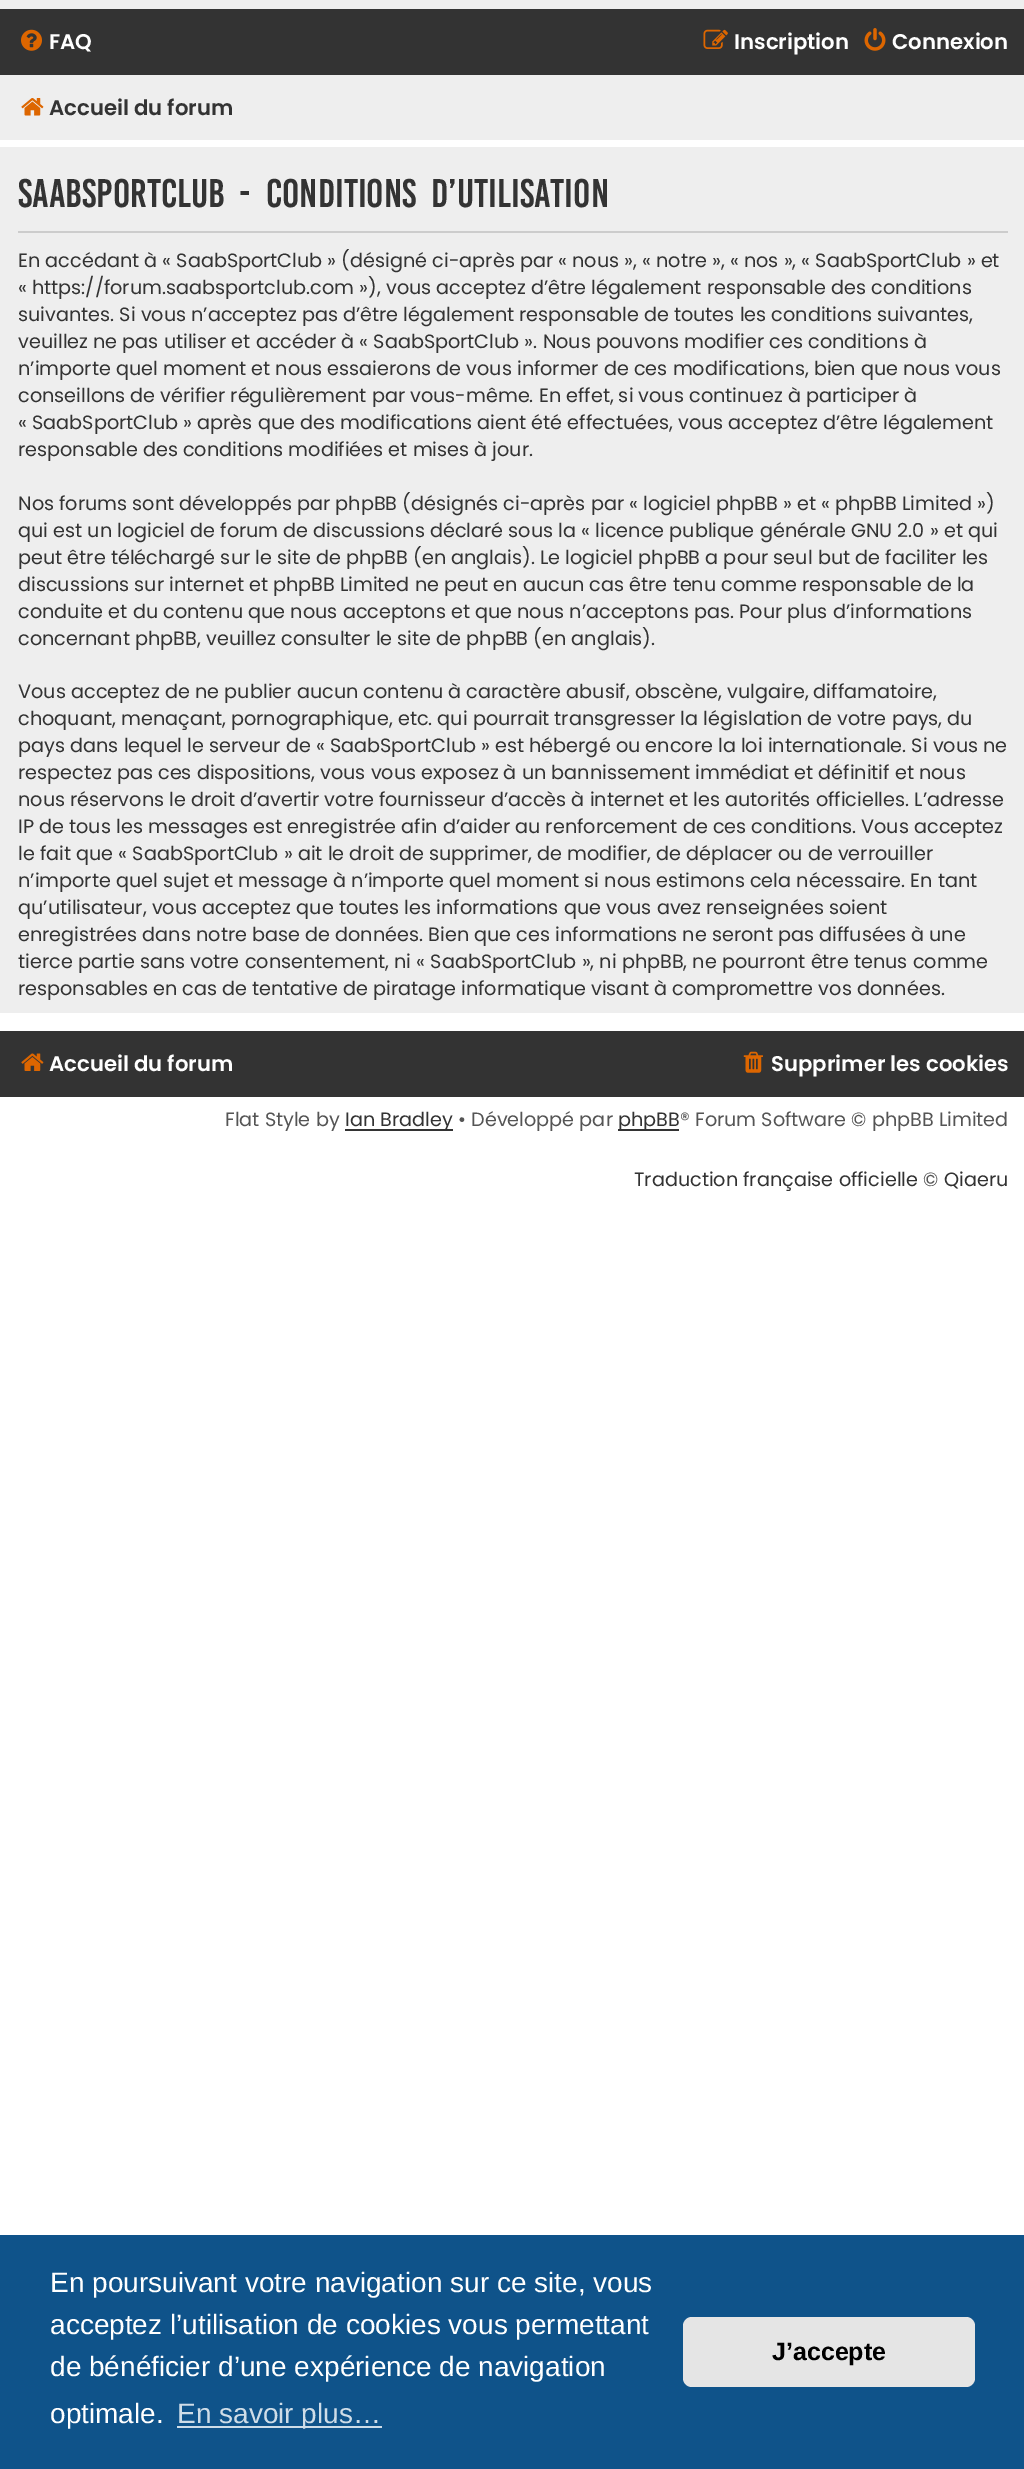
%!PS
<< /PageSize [1024 2469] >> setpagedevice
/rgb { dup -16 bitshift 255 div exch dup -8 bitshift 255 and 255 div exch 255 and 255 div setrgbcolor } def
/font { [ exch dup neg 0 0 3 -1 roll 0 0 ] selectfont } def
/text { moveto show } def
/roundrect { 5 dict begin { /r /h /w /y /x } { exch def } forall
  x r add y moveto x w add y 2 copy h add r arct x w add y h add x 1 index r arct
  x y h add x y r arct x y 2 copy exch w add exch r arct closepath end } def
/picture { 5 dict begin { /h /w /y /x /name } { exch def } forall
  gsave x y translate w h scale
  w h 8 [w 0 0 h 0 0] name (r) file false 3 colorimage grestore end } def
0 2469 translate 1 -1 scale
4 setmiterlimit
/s1 { /Poppins-SemiBold 21.25 font 16#FFFFFF rgb } def
/s2 { /Poppins-SemiBold 21.25 font 16#333333 rgb } def
/s3 { /Poppins-Regular 19.25 font 16#333333 rgb } def
/s4 { /Poppins-Regular 19.25 font 16#555555 rgb } def
/s5 { /LiberationSans-Regular 28 font 16#FFFFFF rgb } def
/s6 { /LiberationSans-Regular 28 font 16#CFDDE8 rgb } def
/s7 { /LiberationSans-Bold 25 font 16#000000 rgb } def
16#FFFFFF rgb
0 0 1024 2469 rectfill
16#EEEEEE rgb
0 0 1024 9 rectfill
16#333333 rgb
0 9 1024 66 rectfill
(pic1.raw) 21 29 21 22 picture
s1
(FAQ) 49 49 text
(pic2.raw) 703 29 25 20 picture
(Inscription) 734 49 text
(pic3.raw) 864 28 22 23 picture
(Connexion) 892 49 text
16#EEEEEE rgb
0 75 1024 65 rectfill
(pic4.raw) 21 98 23 18 picture
s2
(Accueil du forum) 49 115 text
16#EEEEEE rgb
0 147 1024 866 rectfill
16#CCCCCC rgb
18 231 990 2 rectfill
/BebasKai-Regular 30.75 font
16#333333 rgb
18 207 moveto 7 0 32 (SaabSportClub - Conditions d’utilisation) widthshow
s3
(En accédant à « SaabSportClub » \(désigné ci-après par « nous », « notre », « nos », « SaabSportClub » et) 18 267 text
(« https://forum.saabsportclub.com »\), vous acceptez d’être légalement responsable des conditions) 18 294 text
(suivantes. Si vous n’acceptez pas d’être légalement responsable de toutes les conditions suivantes,) 18 321 text
(veuillez ne pas utiliser et accéder à « SaabSportClub ». Nous pouvons modifier ces conditions à) 18 348 text
(n’importe quel moment et nous essaierons de vous informer de ces modifications, bien que nous vous) 18 375 text
(conseillons de vérifier régulièrement par vous-même. En effet, si vous continuez à participer à) 18 402 text
(« SaabSportClub » après que des modifications aient été effectuées, vous acceptez d’être légalement) 18 429 text
(responsable des conditions modifiées et mises à jour.) 18 456 text
(Nos forums sont développés par phpBB \(désignés ci-après par « logiciel phpBB » et « phpBB Limited »\)) 18 510 text
(qui est un logiciel de forum de discussions déclaré sous la « licence publique générale GNU 2.0 » et qui) 18 537 text
(peut être téléchargé sur le site de phpBB \(en anglais\). Le logiciel phpBB a pour seul but de faciliter les) 18 564 text
(discussions sur internet et phpBB Limited ne peut en aucun cas être tenu comme responsable de la) 18 591 text
(conduite et du contenu que nous acceptons et que nous n’acceptons pas. Pour plus d’informations) 18 618 text
(concernant phpBB, veuillez consulter le site de phpBB \(en anglais\).) 18 645 text
(Vous acceptez de ne publier aucun contenu à caractère abusif, obscène, vulgaire, diffamatoire,) 18 698 text
(choquant, menaçant, pornographique, etc. qui pourrait transgresser la législation de votre pays, du) 18 725 text
(pays dans lequel le serveur de « SaabSportClub » est hébergé ou encore la loi internationale. Si vous ne) 18 752 text
(respectez pas ces dispositions, vous vous exposez à un bannissement immédiat et définitif et nous) 18 779 text
(nous réservons le droit d’avertir votre fournisseur d’accès à internet et les autorités officielles. L’adresse) 18 806 text
(IP de tous les messages est enregistrée afin d’aider au renforcement de ces conditions. Vous acceptez) 18 833 text
(le fait que « SaabSportClub » ait le droit de supprimer, de modifier, de déplacer ou de verrouiller) 18 860 text
(n’importe quel sujet et message à n’importe quel moment si nous estimons cela nécessaire. En tant) 18 887 text
(qu’utilisateur, vous acceptez que toutes les informations que vous avez renseignées soient) 18 914 text
(enregistrées dans notre base de données. Bien que ces informations ne seront pas diffusées à une) 18 941 text
(tierce partie sans votre consentement, ni « SaabSportClub », ni phpBB, ne pourront être tenus comme) 18 968 text
(responsables en cas de tentative de piratage informatique visant à compromettre vos données.) 18 995 text
0 1031 1024 66 rectfill
(pic5.raw) 21 1053 23 18 picture
s1
(Accueil du forum) 49 1071 text
(pic6.raw) 743 1051 20 22 picture
(Supprimer les cookies) 771 1071 text
s4
(Flat Style by) 225 1126 text
16#333333 rgb
345 1129 108 2 rectfill
(Ian Bradley) 345 1126 text
s4
(• Développé par) 458 1126 text
16#333333 rgb
618 1129 61 2 rectfill
(phpBB) 618 1126 text
s4
(® Forum Software © phpBB Limited) 680 1126 text
s3
(Traduction française officielle) 634 1186 text
s4
(©) 923 1186 text
s3
(Qiaeru) 944 1186 text
16#0F538A rgb
0 2235 1024 234 rectfill
s5
(En poursuivant votre navigation sur ce site, vous) 50 2292 text
(acceptez l’utilisation de cookies vous permettant) 50 2334 text
(de bénéficier d’une expérience de navigation) 50 2376 text
(optimale.) 50 2423 text
16#CFDDE8 rgb
177 2426 205 2 rectfill
(En savoir plus…) 177 2423 text
16#E5E5E5 rgb
683 2317 292 70 9 roundrect fill
s7
(J’accepte) 772 2360 text
showpage
